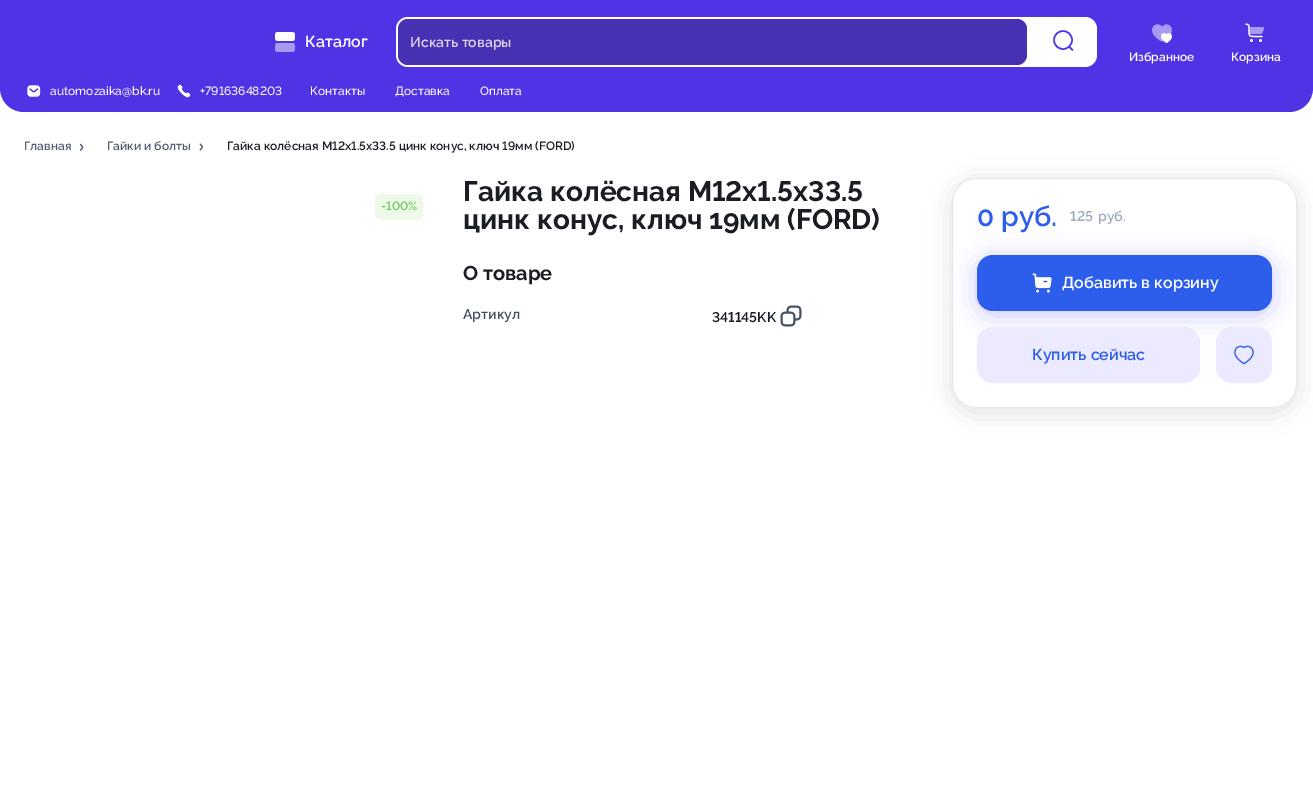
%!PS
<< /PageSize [1313 802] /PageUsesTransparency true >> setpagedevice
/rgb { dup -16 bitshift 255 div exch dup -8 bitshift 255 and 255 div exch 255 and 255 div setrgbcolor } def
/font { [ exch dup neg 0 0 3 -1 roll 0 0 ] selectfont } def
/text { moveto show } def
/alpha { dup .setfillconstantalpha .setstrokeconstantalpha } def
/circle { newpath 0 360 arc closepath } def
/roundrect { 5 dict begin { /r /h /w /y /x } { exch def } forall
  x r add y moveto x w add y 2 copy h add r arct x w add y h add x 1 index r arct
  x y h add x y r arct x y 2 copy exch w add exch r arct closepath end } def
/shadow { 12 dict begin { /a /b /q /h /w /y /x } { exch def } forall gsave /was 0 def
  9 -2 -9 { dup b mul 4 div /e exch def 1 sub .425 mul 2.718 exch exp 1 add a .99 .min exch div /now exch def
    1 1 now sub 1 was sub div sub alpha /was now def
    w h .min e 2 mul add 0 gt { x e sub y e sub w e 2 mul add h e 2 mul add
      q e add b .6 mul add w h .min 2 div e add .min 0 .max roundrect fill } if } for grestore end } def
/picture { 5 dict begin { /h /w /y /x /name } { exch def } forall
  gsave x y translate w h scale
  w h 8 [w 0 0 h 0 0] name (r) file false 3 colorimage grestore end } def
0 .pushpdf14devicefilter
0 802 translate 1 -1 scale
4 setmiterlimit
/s1 { /Raleway-SemiBold 16 font 16#FFFFFF rgb } def
/s2 { /Raleway-SemiBold 14 font 16#DAD6F0 rgb } def
/s3 { /Raleway-SemiBold 12 font 16#FFFFFF rgb } def
/s4 { /Raleway-Medium 12 font 16#FFFFFF rgb } def
/s5 { /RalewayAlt-Medium 12 font 16#FFFFFF rgb } def
/s6 { /Raleway-SemiBold 12 font 16#515E70 rgb } def
/s7 { /RalewayAlt-SemiBold 12 font 16#1A1E24 rgb } def
/s8 { /RalewayAlt-SemiBold 12 font 16#65CD53 rgb } def
/s9 { /RalewayAlt-Bold 28 font 16#1A1E24 rgb } def
/s10 { /Raleway-Bold 28 font 16#1A1E24 rgb } def
/s11 { /Raleway-Bold 20 font 16#1A1E24 rgb } def
/s12 { /Raleway-SemiBold 14 font 16#465161 rgb } def
/s13 { /RalewayAlt-SemiBold 14 font 16#1A1E24 rgb } def
/s14 { /Raleway-SemiBold 28 font 16#2C5EEB rgb } def
/s15 { /RalewayAlt-SemiBold 14 font 16#A0ACBD rgb } def
/s16 { /Raleway-SemiBold 14 font 16#A0ACBD rgb } def
/s17 { /Raleway-SemiBold 16 font 16#2C5EEB rgb } def
16#FFFFFF rgb
0 0 1313 802 rectfill
16#5033E5 rgb
0 0 moveto 1313 0 lineto 1313 88 lineto 1313 101.5 1302.5 112 1289 112 curveto 24 112 lineto 10.5 112 0 101.5 0 88 curveto closepath fill
(pic1.raw) 275 32 20 20 picture
s1
(Каталог) 305 47 text
396 17 701 50 12 roundrect fill
16#4731B2 rgb
398 19 629 46 10 roundrect fill
s2
(Искать товары) 410 47 text
16#5033E5 rgb
1.5 setlinewidth
1063 40 9 circle stroke
1 setlinecap
1 setlinejoin
1069 46.5 moveto 1072.5 50 lineto stroke
(pic2.raw) 1152 24 20 19 picture
s3
(Избранное) 1129 61 text
(pic3.raw) 1245 23 20 19 picture
(Корзина) 1231 61 text
(pic4.raw) 27 85 14 12 picture
s4
(automozaika@bk.ru) 50 95 text
(pic5.raw) 177 84 14 14 picture
s5
(+79163648203) 200 95 text
s4
(Контакты) 310 95 text
(Доставка) 395 95 text
(Оплата) 480 95 text
s6
(Главная) 24 150 text
(pic6.raw) 79 143 5 8 picture
(Гайки и болты) 107 150 text
(pic7.raw) 199 143 4 8 picture
s7
(Гайка колёсная М12х1.5х33.5 цинк конус, ключ 19мм \(FORD\)) 227 150 text
16#EEF9EA rgb
375 194 48 26 6 roundrect fill
s8
(-100%) 381 210 text
s9
(Гайка колёсная М12х1.5х33.5) 463 201 text
s10
(цинк конус, ключ 19мм \(FORD\)) 463 229 text
s11
(О товаре) 463 280 text
s12
(Артикул) 463 319 text
s13
(341145KK) 712 322 text
(pic8.raw) 780 305 22 22 picture
16#000000 rgb
952 182 345 230 24 12 0.12 shadow
16#FFFFFF rgb
952.5 178.5 344 229 23.5 roundrect gsave fill grestore
16#E4E9F0 rgb
1 setlinewidth
0 setlinecap
0 setlinejoin
stroke
s14
(0 руб.) 977 226 text
s15
(125) 1070 221 text
s16
(руб.) 1098 221 text
16#C5C5FA rgb
977 259 295 56 16 12 1 shadow
16#2C5EEB rgb
977 255 295 56 16 roundrect fill
(pic9.raw) 1032 273 20 20 picture
s1
(Добавить в корзину) 1062 288 text
16#EBEAFE rgb
977 327 223 56 16 roundrect fill
s17
(Купить сейчас) 1032 360 text
16#EBEAFE rgb
1216 327 56 56 16 roundrect fill
(pic10.raw) 1234 345 20 20 picture
.poppdf14devicefilter showpage
